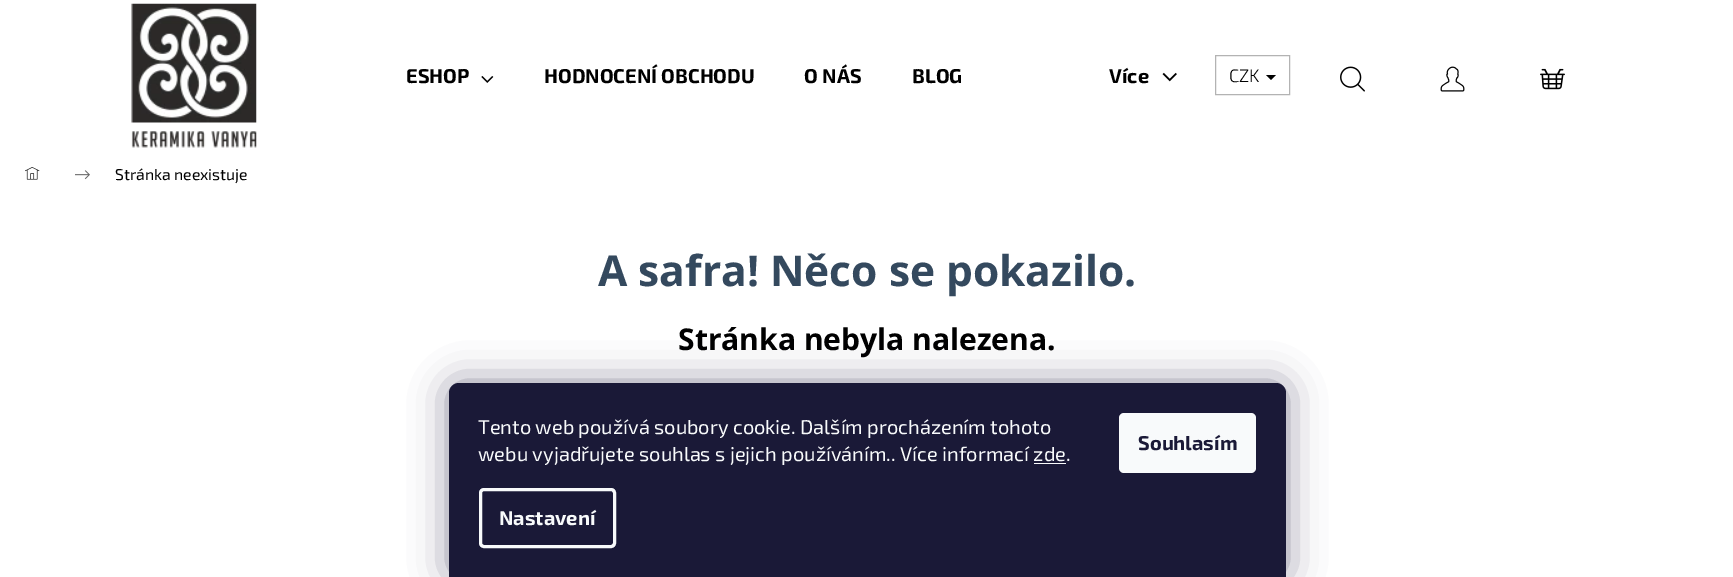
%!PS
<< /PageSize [1733 577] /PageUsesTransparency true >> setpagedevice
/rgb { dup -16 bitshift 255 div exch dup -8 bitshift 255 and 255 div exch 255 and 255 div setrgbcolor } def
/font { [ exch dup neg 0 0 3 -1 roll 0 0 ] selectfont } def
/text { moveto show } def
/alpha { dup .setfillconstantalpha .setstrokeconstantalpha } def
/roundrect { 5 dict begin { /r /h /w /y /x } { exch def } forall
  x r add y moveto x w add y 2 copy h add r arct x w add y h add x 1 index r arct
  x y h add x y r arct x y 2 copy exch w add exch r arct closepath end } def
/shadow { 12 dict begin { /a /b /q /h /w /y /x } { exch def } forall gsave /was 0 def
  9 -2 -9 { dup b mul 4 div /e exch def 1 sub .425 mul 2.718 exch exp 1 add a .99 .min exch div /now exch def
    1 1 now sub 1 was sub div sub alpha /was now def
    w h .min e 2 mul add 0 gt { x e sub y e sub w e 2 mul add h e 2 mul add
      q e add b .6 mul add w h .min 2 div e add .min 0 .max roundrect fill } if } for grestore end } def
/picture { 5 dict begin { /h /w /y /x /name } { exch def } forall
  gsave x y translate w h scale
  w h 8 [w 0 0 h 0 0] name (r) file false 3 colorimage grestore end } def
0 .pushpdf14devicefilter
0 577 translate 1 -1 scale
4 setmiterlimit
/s1 { /Exo2-Bold 20 font 16#000000 rgb } def
/s2 { /Exo2-Light 18 font 16#000000 rgb } def
/s3 { /Exo2-Regular 15.75 font 16#000000 rgb } def
/s4 { /NotoSans-Bold 42.5 font 16#34495E rgb } def
/s5 { /NotoSans-Bold 30 font 16#000000 rgb } def
/s6 { /Exo2-Regular 20 font 16#F8FAFB rgb } def
/s7 { /Exo2-Bold 20 font 16#F8FAFB rgb } def
/s8 { /Exo2-Bold 20 font 16#1A1937 rgb } def
16#FFFFFF rgb
0 0 1733 577 rectfill
(pic1.raw) 131 3 126 145 picture
s1
(ESHOP) 406 83 text
(pic2.raw) 481 76 13 7 picture
(HODNOCENÍ OBCHODU) 544 83 text
(O NÁS) 804 83 text
(BLOG) 912 83 text
(Více) 1109 83 text
(pic3.raw) 1162 72 15 10 picture
16#B3B3B3 rgb
1215.5 55.5 74 39 rectstroke
s2
(CZK) 1229 82 text
1266 75 moveto 1276 75 lineto 1271 80 lineto closepath fill
(pic4.raw) 1340 66 25 26 picture
(pic5.raw) 1440 66 25 26 picture
(pic6.raw) 1540 68 25 22 picture
(pic7.raw) 25 167 15 13 picture
(pic8.raw) 75 170 15 10 picture
s3
(Stránka neexistuje) 115 180 text
s4
(A safra! Něco se pokazilo.) 598 286 text
s5
(Stránka nebyla nalezena.) 678 350 text
16#1B1939 rgb
449 383 837 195 10 19 0.5 shadow
16#1A1937 rgb
459 383 moveto 1276 383 lineto 1281.5 383 1286 387.5 1286 393 curveto 1286 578 lineto 449 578 lineto 449 393 lineto 449 387.5 453.5 383 459 383 curveto closepath fill
s6
(Tento web používá soubory cookie. Dalším procházením tohoto) 478 434 text
(webu vyjadřujete souhlas s jejich používáním.. Více informací zde.) 478 461 text
1034 463 32 1 rectfill
3 setlinewidth
480.5 489.5 134 57 3.5 roundrect stroke
s7
(Nastavení) 499 525 text
1119 413 137 60 5 roundrect fill
s8
(Souhlasím) 1138 450 text
.poppdf14devicefilter showpage
